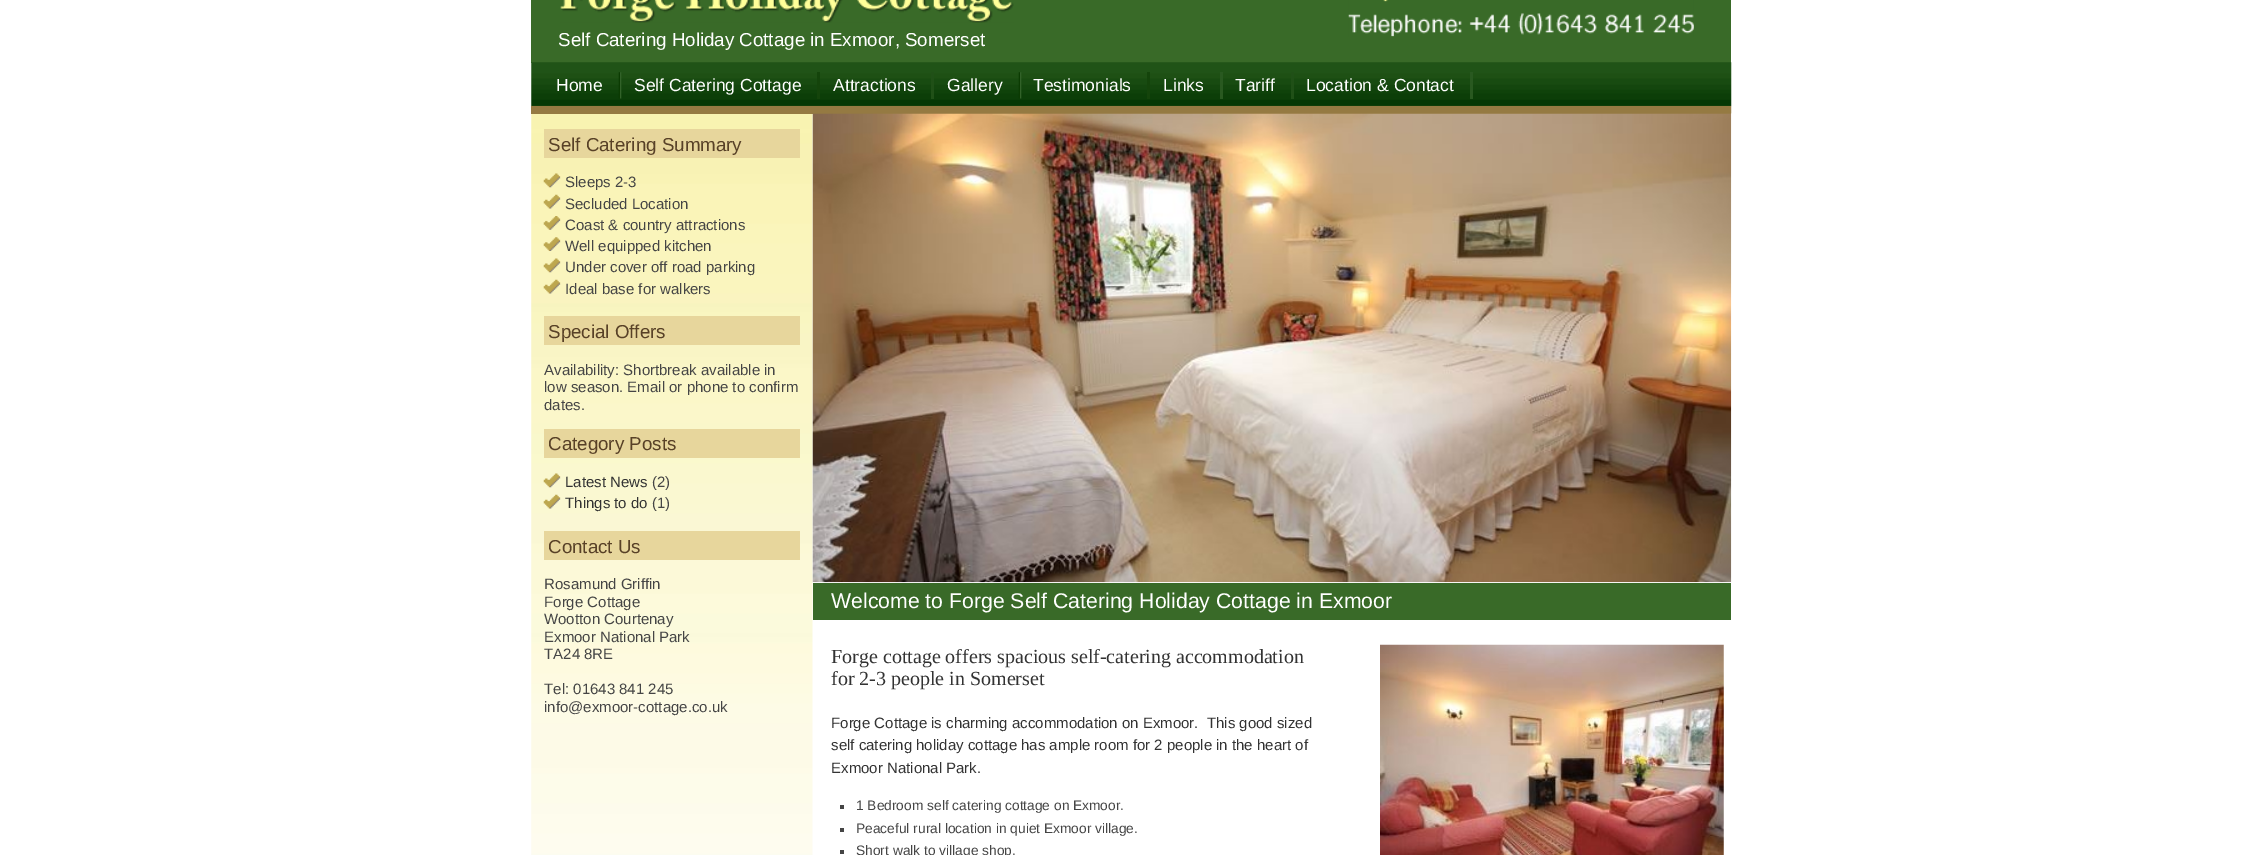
%!PS
<< /PageSize [2262 855] >> setpagedevice
/rgb { dup -16 bitshift 255 div exch dup -8 bitshift 255 and 255 div exch 255 and 255 div setrgbcolor } def
/font { [ exch dup neg 0 0 3 -1 roll 0 0 ] selectfont } def
/text { moveto show } def
/picture { 5 dict begin { /h /w /y /x /name } { exch def } forall
  gsave x y translate w h scale
  w h 8 [w 0 0 h 0 0] name (r) file false 3 colorimage grestore end } def
0 855 translate 1 -1 scale
4 setmiterlimit
/s1 { /LiberationSans-Regular 18.75 font 16#FFFFFF rgb } def
/s2 { /LiberationSans-Regular 17.5 font 16#FFFFFF rgb } def
/s3 { /LiberationSans-Regular 18.75 font 16#584127 rgb } def
/s4 { /LiberationSans-Regular 15 font 16#454545 rgb } def
/s5 { /LiberationSans-Regular 15 font 16#333333 rgb } def
/s6 { /LiberationSans-Regular 21.25 font 16#FFFFFF rgb } def
/s7 { /LiberationSerif-Regular 20 font 16#333333 rgb } def
/s8 { /LiberationSans-Regular 13.75 font 16#454545 rgb } def
16#FFFFFF rgb
0 0 2262 855 rectfill
16#396A28 rgb
531 0 1200 63 rectfill
(pic1.raw) 560 0 454 23 picture
(pic2.raw) 1348 0 346 37 picture
s1
(Self Catering Holiday Cottage in Exmoor, Somerset) 558 46 text
(pic3.raw) 531 62 1201 52 picture
16#957A42 rgb
531 106 1200 8 rectfill
(pic4.raw) 618 72 4 27 picture
s2
(Home) 556 91 text
16#14440B rgb
817 72 3 27 rectfill
s2
(Self Catering Cottage) 634 91 text
16#205017 rgb
931 72 3 27 rectfill
s2
(Attractions) 833 91 text
(pic4.raw) 1018 72 4 27 picture
(Gallery) 947 91 text
16#14440B rgb
1147 72 3 27 rectfill
s2
(Testimonials) 1033 91 text
16#295920 rgb
1220 72 3 27 rectfill
s2
(Links) 1163 91 text
16#205017 rgb
1291 72 3 27 rectfill
s2
(Tariff) 1235 91 text
16#295920 rgb
1470 72 3 27 rectfill
s2
(Location & Contact) 1306 91 text
(pic5.raw) 531 114 282 741 picture
16#E7D69C rgb
544 129 256 29 rectfill
s3
(Self Catering Summary) 548 151 text
(pic6.raw) 543 173 18 15 picture
s4
(Sleeps 2-3) 565 187 text
(pic7.raw) 543 194 18 15 picture
(Secluded Location) 565 209 text
(pic8.raw) 543 216 18 14 picture
(Coast & country attractions) 565 230 text
(pic9.raw) 543 237 18 14 picture
(Well equipped kitchen) 565 251 text
(pic10.raw) 543 258 18 15 picture
(Under cover off road parking) 565 272 text
(pic11.raw) 543 279 18 15 picture
(Ideal base for walkers) 565 294 text
16#E7D69C rgb
544 316 256 29 rectfill
s3
(Special Offers) 548 338 text
s4
(Availability: Shortbreak available in) 544 375 text
(low season. Email or phone to confirm) 544 392 text
(dates.) 544 410 text
16#E7D69C rgb
544 429 256 29 rectfill
s3
(Category Posts) 548 450 text
(pic12.raw) 543 473 18 15 picture
s5
(Latest News) 565 487 text
s4
(\(2\)) 652 487 text
(pic13.raw) 543 494 18 15 picture
s5
(Things to do) 565 508 text
s4
(\(1\)) 652 508 text
16#E7D69C rgb
544 531 256 29 rectfill
s3
(Contact Us) 548 553 text
s4
(Rosamund Griffin) 544 589 text
(Forge Cottage) 544 607 text
(Wootton Courtenay) 544 624 text
(Exmoor National Park) 544 642 text
(TA24 8RE) 544 659 text
(Tel: 01643 841 245) 544 694 text
(info@exmoor-cottage.co.uk) 544 712 text
(pic14.raw) 812 113 920 470 picture
16#396A28 rgb
813 583 918 37 rectfill
s6
(Welcome to Forge Self Catering Holiday Cottage in Exmoor) 831 608 text
s7
(Forge cottage offers spacious self-catering accommodation) 831 663 text
(for 2-3 people in Somerset) 831 685 text
s5
(Forge Cottage is charming accommodation on Exmoor.  This good sized) 831 728 text
(self catering holiday cottage has ample room for 2 people in the heart of) 831 750 text
(Exmoor National Park.) 831 773 text
16#454545 rgb
840 805 4 4 rectfill
s8
(1 Bedroom self catering cottage on Exmoor.) 856 810 text
840 828 4 4 rectfill
(Peaceful rural location in quiet Exmoor village.) 856 833 text
840 850 4 4 rectfill
(Short walk to village shop.) 856 855 text
(pic15.raw) 1380 644 344 211 picture
showpage
